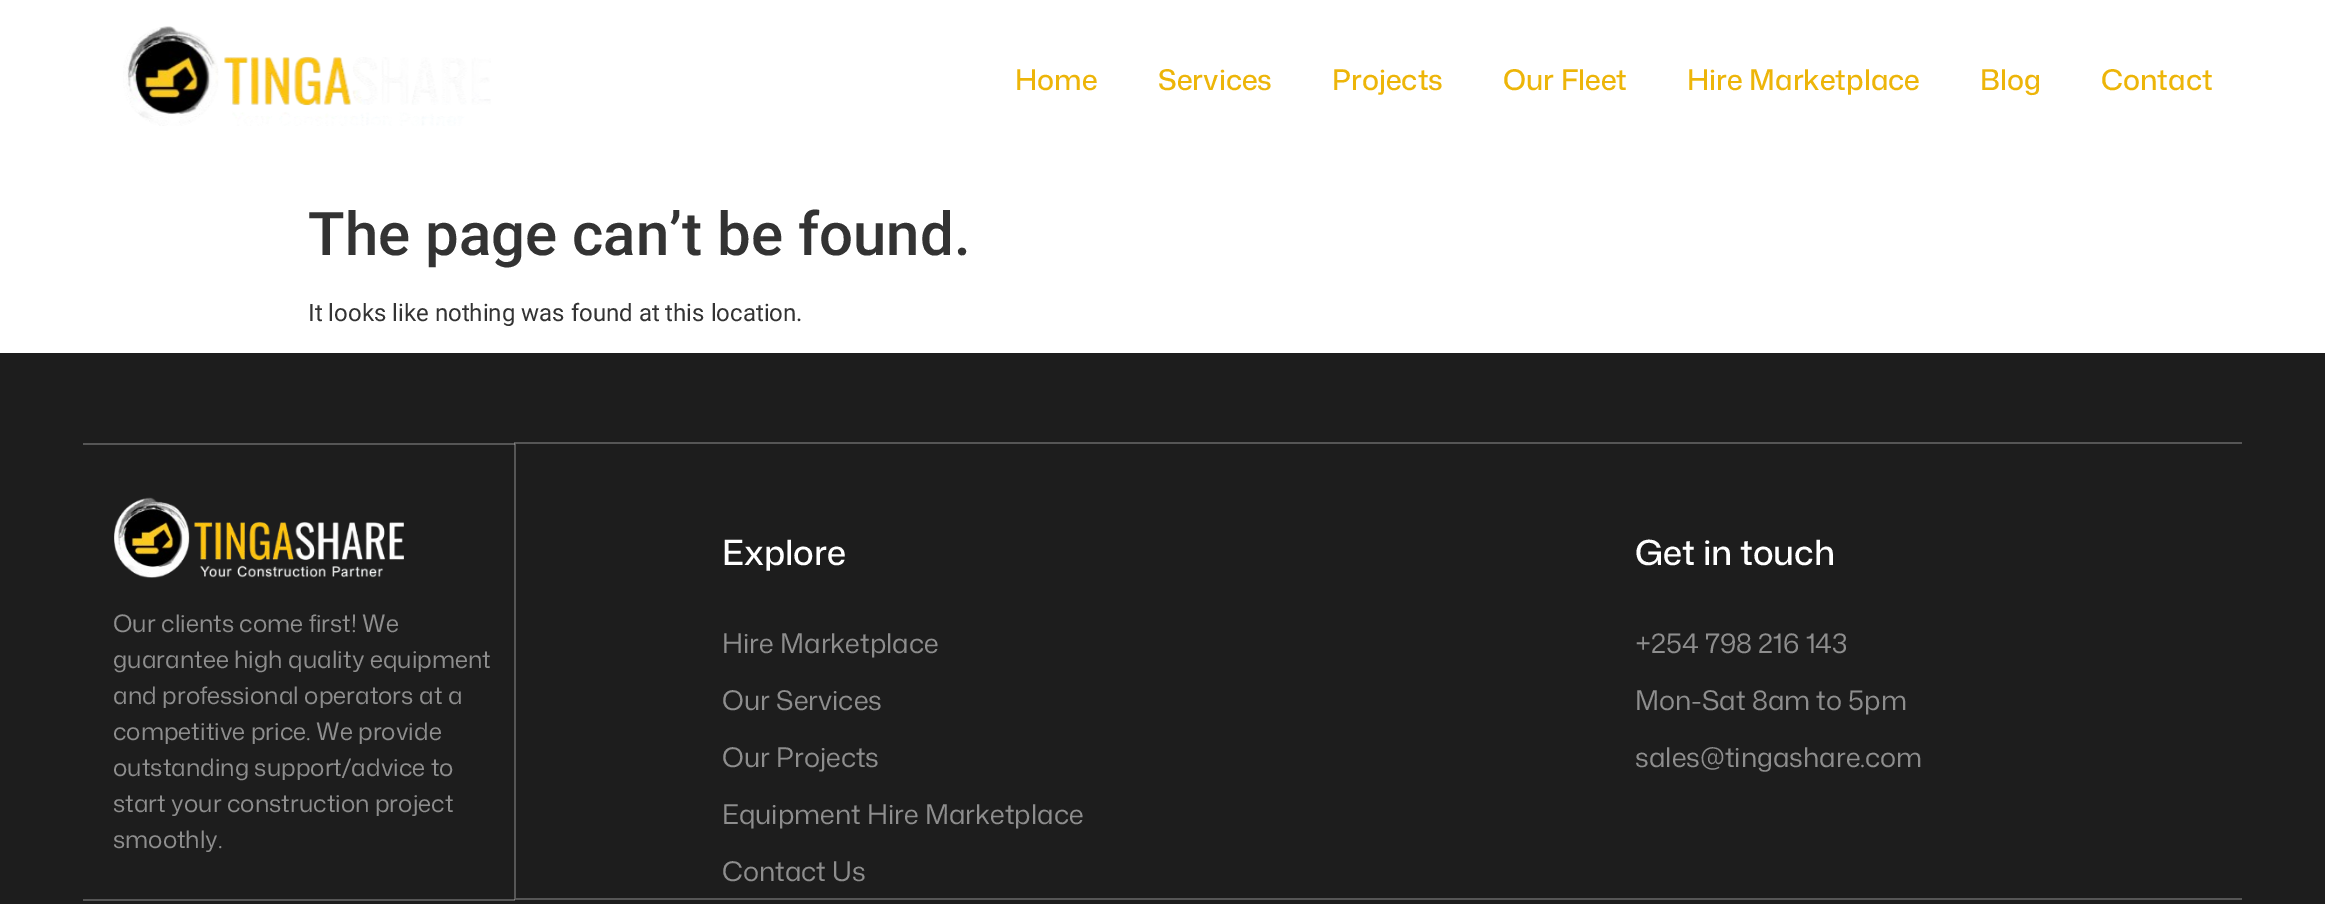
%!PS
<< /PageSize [2325 904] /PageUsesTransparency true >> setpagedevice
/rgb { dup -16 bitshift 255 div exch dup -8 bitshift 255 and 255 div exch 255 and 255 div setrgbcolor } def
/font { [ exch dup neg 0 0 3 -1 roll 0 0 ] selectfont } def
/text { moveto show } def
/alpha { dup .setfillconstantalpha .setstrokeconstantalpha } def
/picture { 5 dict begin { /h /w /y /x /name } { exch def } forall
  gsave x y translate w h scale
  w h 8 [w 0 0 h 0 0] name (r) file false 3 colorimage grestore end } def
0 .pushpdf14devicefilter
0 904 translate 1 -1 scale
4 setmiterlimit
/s1 { /MonaSans-Medium 28.5 font 16#EDB509 rgb } def
/s2 { /Roboto-Medium 60 font 16#333333 rgb } def
/s3 { /Roboto-Regular 24 font 16#333333 rgb } def
/s4 { /MonaSans-Regular 24 font 16#8E8E8E rgb } def
/s5 { /MonaSans-Medium 34.5 font 16#FFFFFF rgb } def
/s6 { /MonaSans-Regular 27 font 16#8E8E8E rgb } def
16#FFFFFF rgb
0 0 2325 904 rectfill
(pic1.raw) 123 26 368 100 picture
s1
(Home) 1015 90 text
(Services) 1158 90 text
(Projects) 1332 90 text
(Our Fleet) 1503 90 text
(Hire Marketplace) 1687 90 text
(Blog) 1980 90 text
(Contact) 2101 90 text
s2
(The page can’t be found.) 308 255 text
s3
(It looks like nothing was found at this location.) 308 321 text
16#1D1D1D rgb
0 353 2325 551 rectfill
16#565656 rgb
83 443 432 2 rectfill
83 899 432 2 rectfill
(pic2.raw) 114 497 290 81 picture
s4
(Our clients come first! We) 113 632 text
(guarantee high quality equipment) 113 668 text
(and professional operators at a) 113 704 text
(competitive price. We provide) 113 740 text
(outstanding support/advice to) 113 776 text
(start your construction project) 113 812 text
(smoothly.) 113 848 text
16#565656 rgb
514 442 moveto 2242 442 lineto 2242 444 lineto 516 444 lineto closepath fill
0.25 alpha
16#FFFFFF rgb
2242 900 moveto 514 900 lineto 516 898 lineto 2242 898 lineto closepath fill
514 900 moveto 514 442 lineto 516 444 lineto 516 898 lineto closepath fill
1 alpha
s5
(Explore) 722 565 text
s6
(Hire Marketplace) 722 653 text
(Our Services) 722 710 text
(Our Projects) 722 767 text
(Equipment Hire Marketplace) 722 824 text
(Contact Us) 722 881 text
s5
(Get in touch) 1635 565 text
s6
(+254 798 216 143) 1635 653 text
(Mon-Sat 8am to 5pm) 1635 710 text
(sales@tingashare.com) 1635 767 text
.poppdf14devicefilter showpage
